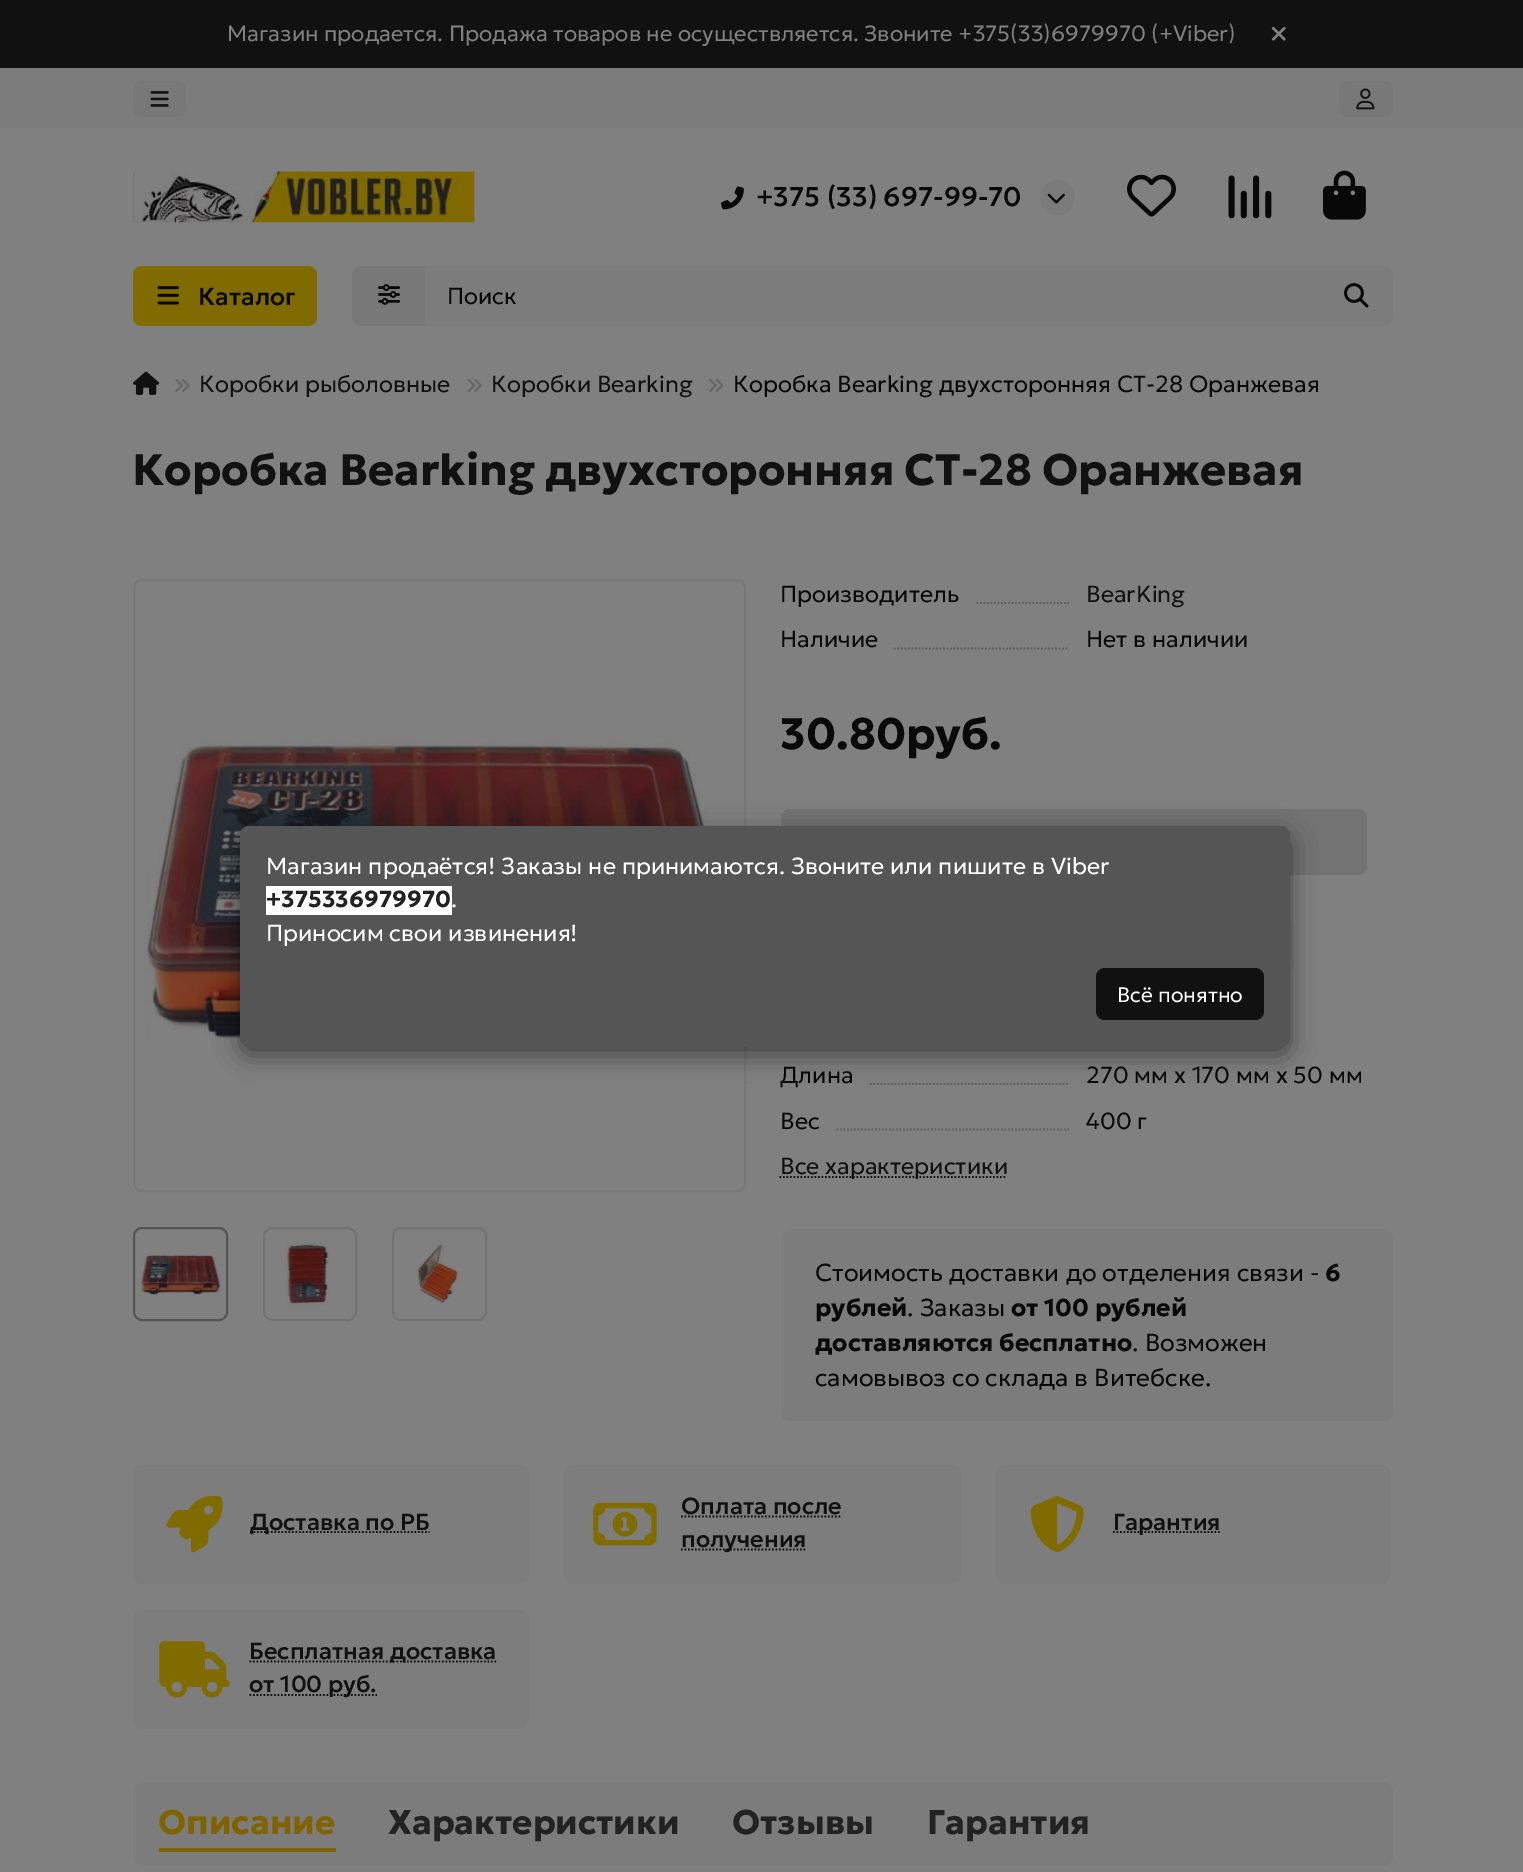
%!PS
<< /PageSize [1523 1872] /PageUsesTransparency true >> setpagedevice
/rgb { dup -16 bitshift 255 div exch dup -8 bitshift 255 and 255 div exch 255 and 255 div setrgbcolor } def
/font { [ exch dup neg 0 0 3 -1 roll 0 0 ] selectfont } def
/text { moveto show } def
/alpha { dup .setfillconstantalpha .setstrokeconstantalpha } def
/circle { newpath 0 360 arc closepath } def
/roundrect { 5 dict begin { /r /h /w /y /x } { exch def } forall
  x r add y moveto x w add y 2 copy h add r arct x w add y h add x 1 index r arct
  x y h add x y r arct x y 2 copy exch w add exch r arct closepath end } def
/shadow { 12 dict begin { /a /b /q /h /w /y /x } { exch def } forall gsave /was 0 def
  9 -2 -9 { dup b mul 4 div /e exch def 1 sub .425 mul 2.718 exch exp 1 add a .99 .min exch div /now exch def
    1 1 now sub 1 was sub div sub alpha /was now def
    w h .min e 2 mul add 0 gt { x e sub y e sub w e 2 mul add h e 2 mul add
      q e add b .6 mul add w h .min 2 div e add .min 0 .max roundrect fill } if } for grestore end } def
/picture { 5 dict begin { /h /w /y /x /name } { exch def } forall
  gsave x y translate w h scale
  w h 8 [w 0 0 h 0 0] name (r) file false 3 colorimage grestore end } def
0 .pushpdf14devicefilter
0 1872 translate 1 -1 scale
4 setmiterlimit
/s1 { /Geologica-Light 22.05 font 16#808080 rgb } def
/s2 { /Geologica-Medium 27 font 16#090909 rgb } def
/s3 { /Geologica-Medium 24.5 font 16#090909 rgb } def
/s4 { /Geologica-Light 23.3 font 16#090909 rgb } def
/s5 { /Geologica-Light 23.3 font 16#111111 rgb } def
/s6 { /Geologica-Bold 44.1 font 16#111111 rgb } def
/s7 { /Geologica-Bold 44.1 font 16#090909 rgb } def
/s8 { /Geologica-Light 24.5 font 16#090909 rgb } def
/s9 { /Geologica-Bold 24.5 font 16#090909 rgb } def
/s10 { /Geologica-Medium 23.3 font 16#111111 rgb } def
/s11 { /Geologica-Bold 34.25 font 16#806300 rgb } def
/s12 { /Geologica-Bold 34.25 font 16#222222 rgb } def
/s13 { /Geologica-Light 23.3 font 16#FFFFFF rgb } def
/s14 { /Geologica-Bold 23.3 font 16#222222 rgb } def
/s15 { /Geologica-Light 21 font 16#FFFFFF rgb } def
16#808080 rgb
0 0 1523 1872 rectfill
16#111111 rgb
0 0 1523 68 rectfill
s1
(Магазин продается. Продажа товаров не осуществляется. Звоните +375\(33\)6979970 \(+Viber\)) 227 41 text
(pic1.raw) 1271 26 15 15 picture
16#7C7C7C rgb
0 68 1523 60 rectfill
16#787878 rgb
133 81 53 36 9 roundrect fill
(pic2.raw) 150 91 19 16 picture
1339 81 54 36 9 roundrect fill
(pic3.raw) 1356 88 19 22 picture
(pic4.raw) 133 171 342 52 picture
(pic5.raw) 721 186 23 24 picture
s2
(+375 \(33\) 697-99-70) 756 206 text
16#7B7B7B rgb
1057.5 197.5 17.5 circle fill
(pic6.raw) 1047 193 18 11 picture
(pic7.raw) 1127 174 49 43 picture
(pic8.raw) 1228 175 44 44 picture
(pic9.raw) 1323 170 43 50 picture
16#806B00 rgb
133 266 184 60 9 roundrect fill
(pic10.raw) 157 286 22 19 picture
s3
(Каталог) 198 305 text
16#787878 rgb
361 266 moveto 425 266 lineto 425 326 lineto 361 326 lineto 356 326 352 322 352 317 curveto 352 275 lineto 352 270 356 266 361 266 curveto closepath fill
(pic11.raw) 378 284 22 21 picture
16#7C7C7C rgb
425 266 moveto 1384 266 lineto 1389 266 1393 270 1393 275 curveto 1393 317 lineto 1393 322 1389 326 1384 326 curveto 425 326 lineto closepath fill
s4
(Поиск) 447 304 text
(pic12.raw) 1344 283 25 25 picture
(pic13.raw) 133 371 27 24 picture
(pic14.raw) 175 379 15 13 picture
s5
(Коробки рыболовные) 199 392 text
(pic15.raw) 467 379 15 13 picture
(Коробки Bearking) 491 392 text
(pic16.raw) 709 379 15 13 picture
s4
(Коробка Bearking двухсторонняя CT-28 Оранжевая) 733 392 text
s6
(Коробка Bearking двухсторонняя CT-28 Оранжевая) 132 485 text
16#787878 rgb
2 setlinewidth
134 580 611 611 8 roundrect stroke
(pic17.raw) 144 742 600 297 picture
16#555555 rgb
134 1228 93 92 8 roundrect stroke
(pic18.raw) 140 1254 81 41 picture
16#737373 rgb
264 1228 92 92 8 roundrect stroke
(pic19.raw) 285 1242 44 64 picture
393 1228 93 92 8 roundrect stroke
(pic20.raw) 416 1244 47 60 picture
s4
(Производитель) 780 602 text
16#5E5E5E rgb
1.8 setlinewidth
[1.75 1.75] 0 setdash
976.5 603 moveto 1069 603 lineto stroke
s5
(BearKing) 1086 602 text
s4
(Наличие) 780 647 text
16#5E5E5E rgb
894 648.5 moveto 1069 648.5 lineto stroke
s4
(Нет в наличии) 1086 647 text
s7
(30.80руб.) 780 749 text
16#737373 rgb
781 809 586 66 9 roundrect fill
16#7C7C7C rgb
1234 919 61 52 9 roundrect fill
s4
(Длина) 780 1083 text
16#5E5E5E rgb
870 1084 moveto 1069 1084 lineto stroke
s4
(270 мм х 170 мм х 50 мм) 1086 1083 text
(Вес) 780 1129 text
16#5E5E5E rgb
836.5 1129.5 moveto 1069 1129.5 lineto stroke
s4
(400 г) 1086 1129 text
16#111111 rgb
779.5 1177 moveto 1007 1177 lineto stroke
(Все характеристики) 780 1174 text
16#7C7C7C rgb
781 1229 612 192 9 roundrect fill
s8
(Стоимость доставки до отделения связи -) 815 1281 text
s9
(6) 1325 1281 text
(рублей) 815 1316 text
s8
(. Заказы) 907 1316 text
s9
(от 100 рублей) 1011 1316 text
(доставляются бесплатно) 815 1351 text
s8
(. Возможен) 1132 1351 text
(самовывоз со склада в Витебске.) 815 1386 text
16#7D7D7D rgb
133 1465 396 119 9 roundrect fill
(pic21.raw) 166 1496 57 57 picture
16#111111 rgb
250 1532 moveto 429.5 1532 lineto stroke
s10
(Доставка по РБ) 250 1530 text
16#7D7D7D rgb
564 1465 397 119 9 roundrect fill
(pic22.raw) 593 1503 64 43 picture
s10
(Оплата после) 681 1514 text
681 1516.5 moveto 841.5 1516.5 lineto stroke
681 1549.5 moveto 806.5 1549.5 lineto stroke
(получения) 681 1547 text
16#7D7D7D rgb
996 1465 395 119 9 roundrect fill
(pic23.raw) 1030 1495 54 57 picture
16#111111 rgb
1113 1532 moveto 1220.5 1532 lineto stroke
(Гарантия) 1113 1530 text
16#7D7D7D rgb
133 1610 396 119 9 roundrect fill
(pic24.raw) 159 1641 71 57 picture
16#111111 rgb
249.5 1661.5 moveto 496.5 1661.5 lineto stroke
(Бесплатная доставка) 249 1659 text
249.5 1695 moveto 377 1695 lineto stroke
(от 100 руб.) 249 1692 text
16#7C7C7C rgb
133 1782 1260 84 9 roundrect fill
s11
(Описание) 158 1834 text
159 1848 177 4 rectfill
s12
(Характеристики) 388 1834 text
(Отзывы) 732 1834 text
(Гарантия) 927 1834 text
16#000000 rgb
240 835 1050 220 9 13 0.5 shadow
16#555555 rgb
240 826 1050 221 9 roundrect fill
s13
(Магазин продаётся! Заказы не принимаются. Звоните или пишите в Viber) 266 874 text
266 886 186 29 rectfill
s14
(+375336979970) 266 907 text
s13
(.) 451 907 text
(Приносим свои извинения!) 266 941 text
16#111111 rgb
1096 968 168 52 9 roundrect fill
s15
(Всё понятно) 1117 1002 text
.poppdf14devicefilter showpage
